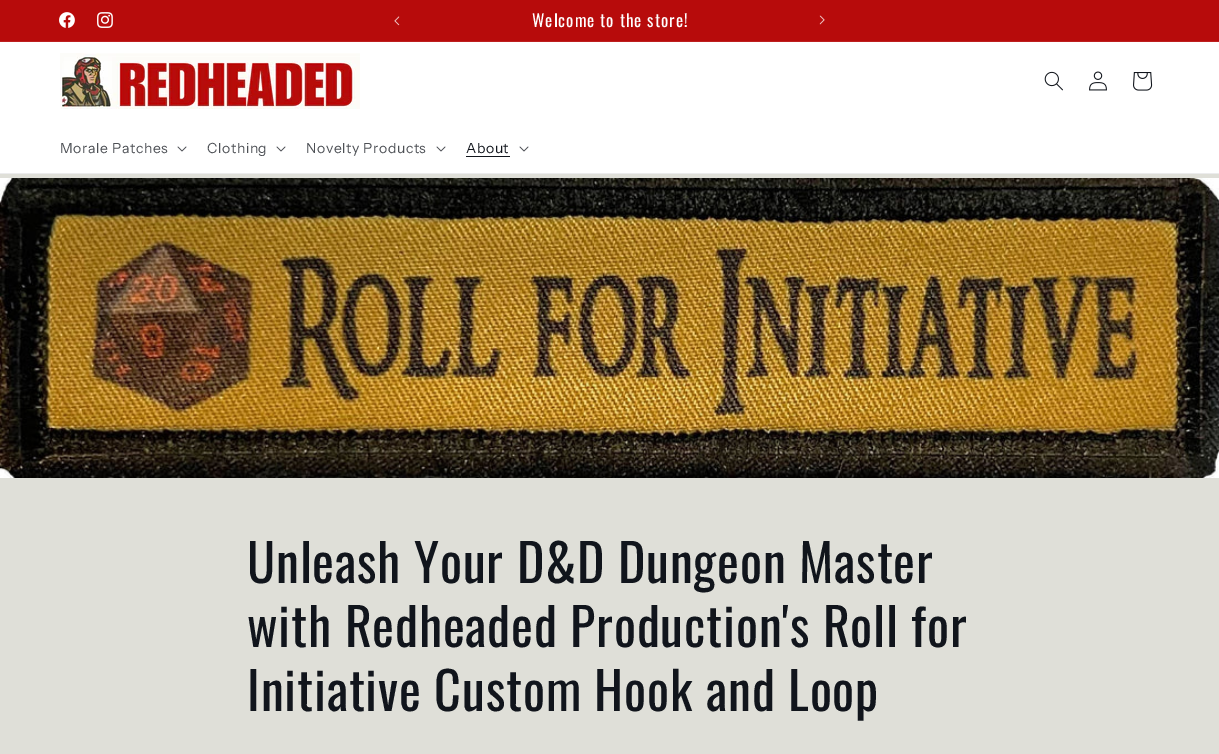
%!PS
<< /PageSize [1219 754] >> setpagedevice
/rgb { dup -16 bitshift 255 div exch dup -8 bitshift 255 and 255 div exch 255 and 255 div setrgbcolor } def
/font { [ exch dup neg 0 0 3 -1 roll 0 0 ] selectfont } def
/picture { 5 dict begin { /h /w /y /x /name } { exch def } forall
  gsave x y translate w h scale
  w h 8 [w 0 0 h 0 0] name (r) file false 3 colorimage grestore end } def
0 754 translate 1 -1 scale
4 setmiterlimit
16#DFDFD8 rgb
0 0 1219 754 rectfill
16#B70B0B rgb
0 0 1219 41 rectfill
16#BD1F1F rgb
0 41 1219 1 rectfill
(pic1.raw) 59 12 16 16 picture
(pic2.raw) 97 12 16 16 picture
(pic3.raw) 394 16 6 10 picture
/Oswald-Regular 17 font
16#FFFFFF rgb
532 27 moveto 1 0 (Welcome to the store!) ashow
(pic4.raw) 819 15 6 10 picture
0 42 1219 131 rectfill
16#ECECED rgb
0 173 1219 1 rectfill
(pic5.raw) 60 53 300 56 picture
(pic6.raw) 1044 71 19 20 picture
(pic7.raw) 1089 71 18 20 picture
(pic8.raw) 1133 72 20 19 picture
/InstrumentSans-Regular 14 font
16#4D5055 rgb
60 153 moveto 0.6 0 (Morale Patches) ashow
(pic9.raw) 177 146 10 6 picture
207 153 moveto 0.6 0 (Clothing) ashow
(pic9.raw) 276 146 10 6 picture
306 153 moveto 0.6 0 (Novelty Products) ashow
(pic9.raw) 436 146 10 6 picture
16#11151C rgb
466 153 moveto 0.6 0 (About) ashow
466 156 44 1 rectfill
(pic9.raw) 519 146 10 6 picture
(pic10.raw) 0 178 1219 300 picture
/Oswald-Regular 52 font
247 583 moveto 0.8 0 (Unleash Your D&D Dungeon Master) ashow
247 647 moveto 0.8 0 (with Redheaded Production's Roll for) ashow
247 711 moveto 0.8 0 (Initiative Custom Hook and Loop) ashow
showpage
